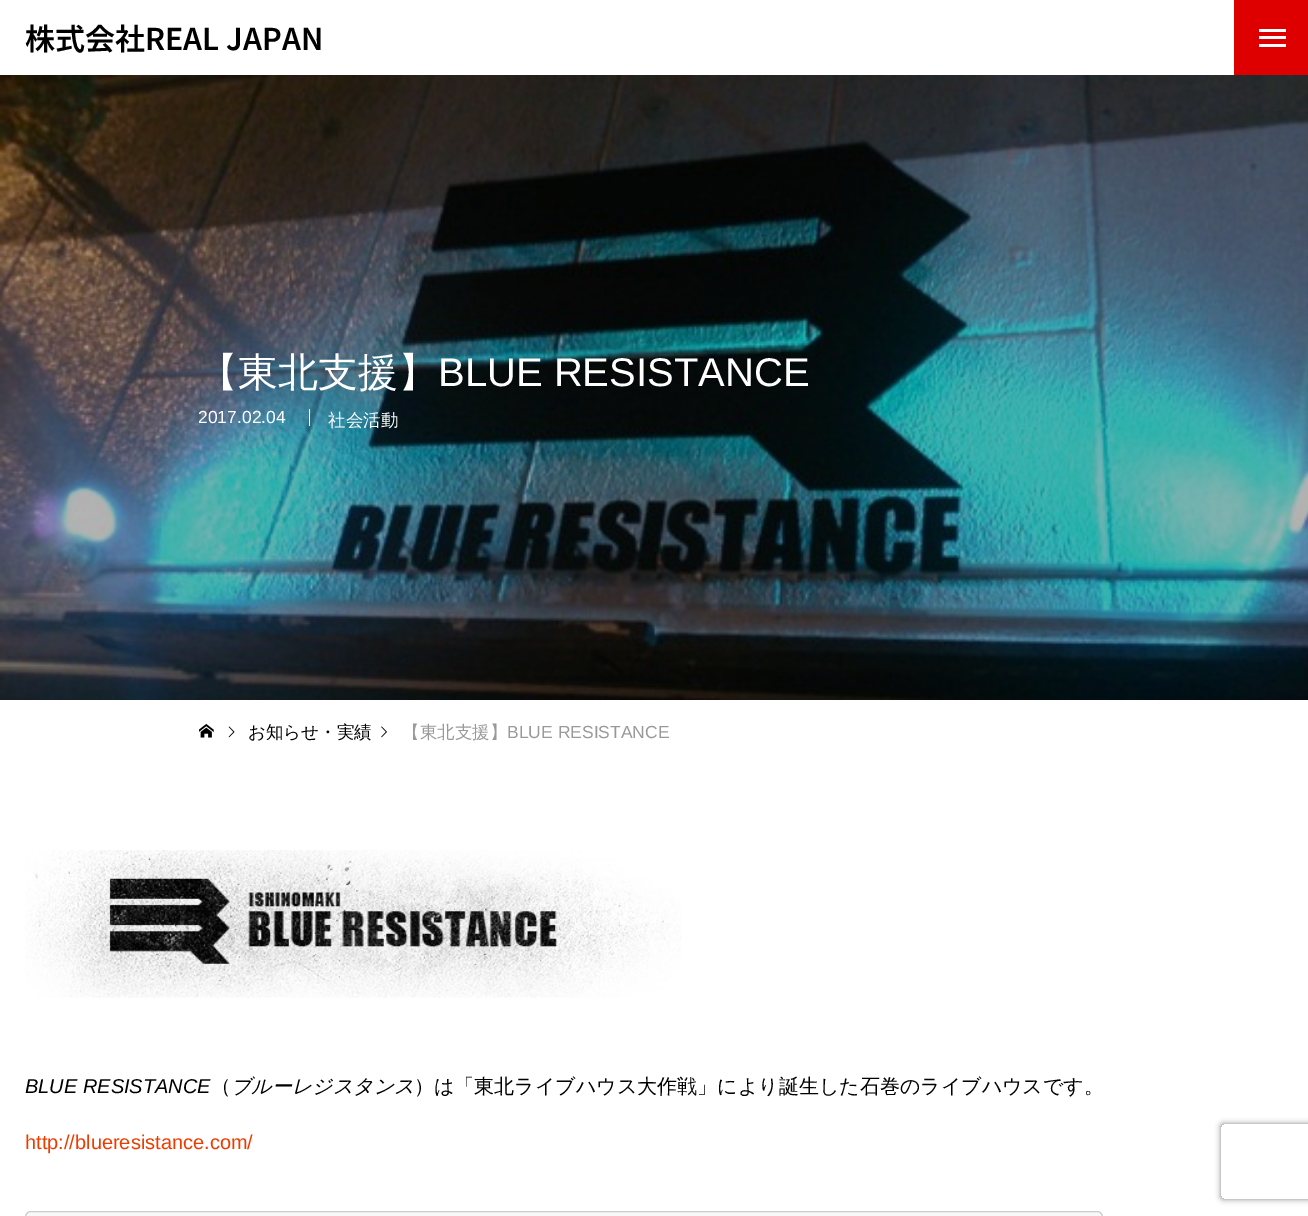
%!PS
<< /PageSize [1308 1216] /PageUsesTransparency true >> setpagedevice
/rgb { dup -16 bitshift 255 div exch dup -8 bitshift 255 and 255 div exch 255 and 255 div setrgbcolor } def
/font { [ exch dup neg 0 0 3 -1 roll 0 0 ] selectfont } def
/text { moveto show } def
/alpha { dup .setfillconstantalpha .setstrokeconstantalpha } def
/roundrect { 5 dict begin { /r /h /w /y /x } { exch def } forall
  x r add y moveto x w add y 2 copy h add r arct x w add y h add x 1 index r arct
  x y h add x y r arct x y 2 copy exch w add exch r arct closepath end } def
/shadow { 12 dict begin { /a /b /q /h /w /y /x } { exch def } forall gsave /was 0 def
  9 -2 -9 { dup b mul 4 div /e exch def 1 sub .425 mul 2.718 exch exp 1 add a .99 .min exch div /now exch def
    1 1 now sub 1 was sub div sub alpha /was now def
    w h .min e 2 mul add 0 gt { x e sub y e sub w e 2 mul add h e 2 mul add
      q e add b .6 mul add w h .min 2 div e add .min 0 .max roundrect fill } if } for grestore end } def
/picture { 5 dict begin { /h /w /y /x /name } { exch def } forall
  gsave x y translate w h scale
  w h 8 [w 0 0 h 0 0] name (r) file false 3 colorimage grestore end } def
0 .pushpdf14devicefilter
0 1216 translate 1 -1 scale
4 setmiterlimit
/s1 { /NotoSansJP-SemiBold 30 font 16#000000 rgb } def
/s2 { /WenQuanYiZenHei-Medium 40 font 16#FFFFFF rgb } def
/s3 { /LiberationSans-Regular 40 font 16#FFFFFF rgb } def
/s4 { /LiberationSans-Regular 17.5 font 16#FFFFFF rgb } def
/s5 { /WenQuanYiZenHei-Medium 17.5 font 16#FFFFFF rgb } def
/s6 { /WenQuanYiZenHei-Medium 17.5 font 16#000000 rgb } def
/s7 { /WenQuanYiZenHei-Medium 17.5 font 16#999999 rgb } def
/s8 { /LiberationSans-Regular 17.5 font 16#999999 rgb } def
/s9 { /LiberationSans-Italic 20 font 16#000000 rgb } def
/s10 { /WenQuanYiZenHei-Medium 20 font 16#000000 rgb } def
/s11 { /WenQuanYiZenHei-MediumItalic 20 font 16#000000 rgb } def
/s12 { /LiberationSans-Regular 20 font 16#EE3C00 rgb } def
16#FFFFFF rgb
0 0 1308 1216 rectfill
s1
(株式会社REAL JAPAN) 25 50 text
16#DE0000 rgb
1234 0 74 75 rectfill
16#FFFFFF rgb
1259 29 27 3 rectfill
1259 36 27 3 rectfill
1259 44 27 3 rectfill
(pic1.raw) 0 75 1308 625 picture
s2
(【東北支援】) 198 386 text
s3
(BLUE RESISTANCE) 438 386 text
309 409 1 17 rectfill
s4
(2017.02.04) 198 423 text
s5
(社会活動) 328 426 text
(pic2.raw) 199 724 15 14 picture
(pic3.raw) 228 726 7 12 picture
s6
(お知らせ・実績) 248 738 text
(pic4.raw) 381 726 6 12 picture
s7
(【東北支援】) 402 738 text
s8
(BLUE RESISTANCE) 507 738 text
(pic5.raw) 25 850 656 148 picture
s9
(BLUE RESISTANCE) 25 1093 text
s10
(（) 211 1093 text
s11
(ブルーレジスタンス) 231 1093 text
s10
(）は「東北ライブハウス大作戦」により誕生した石巻のライブハウスです。) 414 1093 text
s12
(http://blueresistance.com/) 25 1149 text
16#F8F8F8 rgb
25.5 1211.5 1077 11 5.5 roundrect gsave fill grestore
16#CCCCCC rgb
stroke
gsave
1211 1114 moveto 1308 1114 lineto 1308 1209 lineto 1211 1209 lineto closepath 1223.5 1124 moveto 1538.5 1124 lineto 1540 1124 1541 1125 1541 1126.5 curveto 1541 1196.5 lineto 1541 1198 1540 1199 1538.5 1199 curveto 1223.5 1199 lineto 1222 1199 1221 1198 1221 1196.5 curveto 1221 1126.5 lineto 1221 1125 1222 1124 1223.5 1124 curveto closepath eoclip newpath
16#808080 rgb
1221 1124 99 75 2.5 3 1 shadow
grestore
.poppdf14devicefilter showpage
